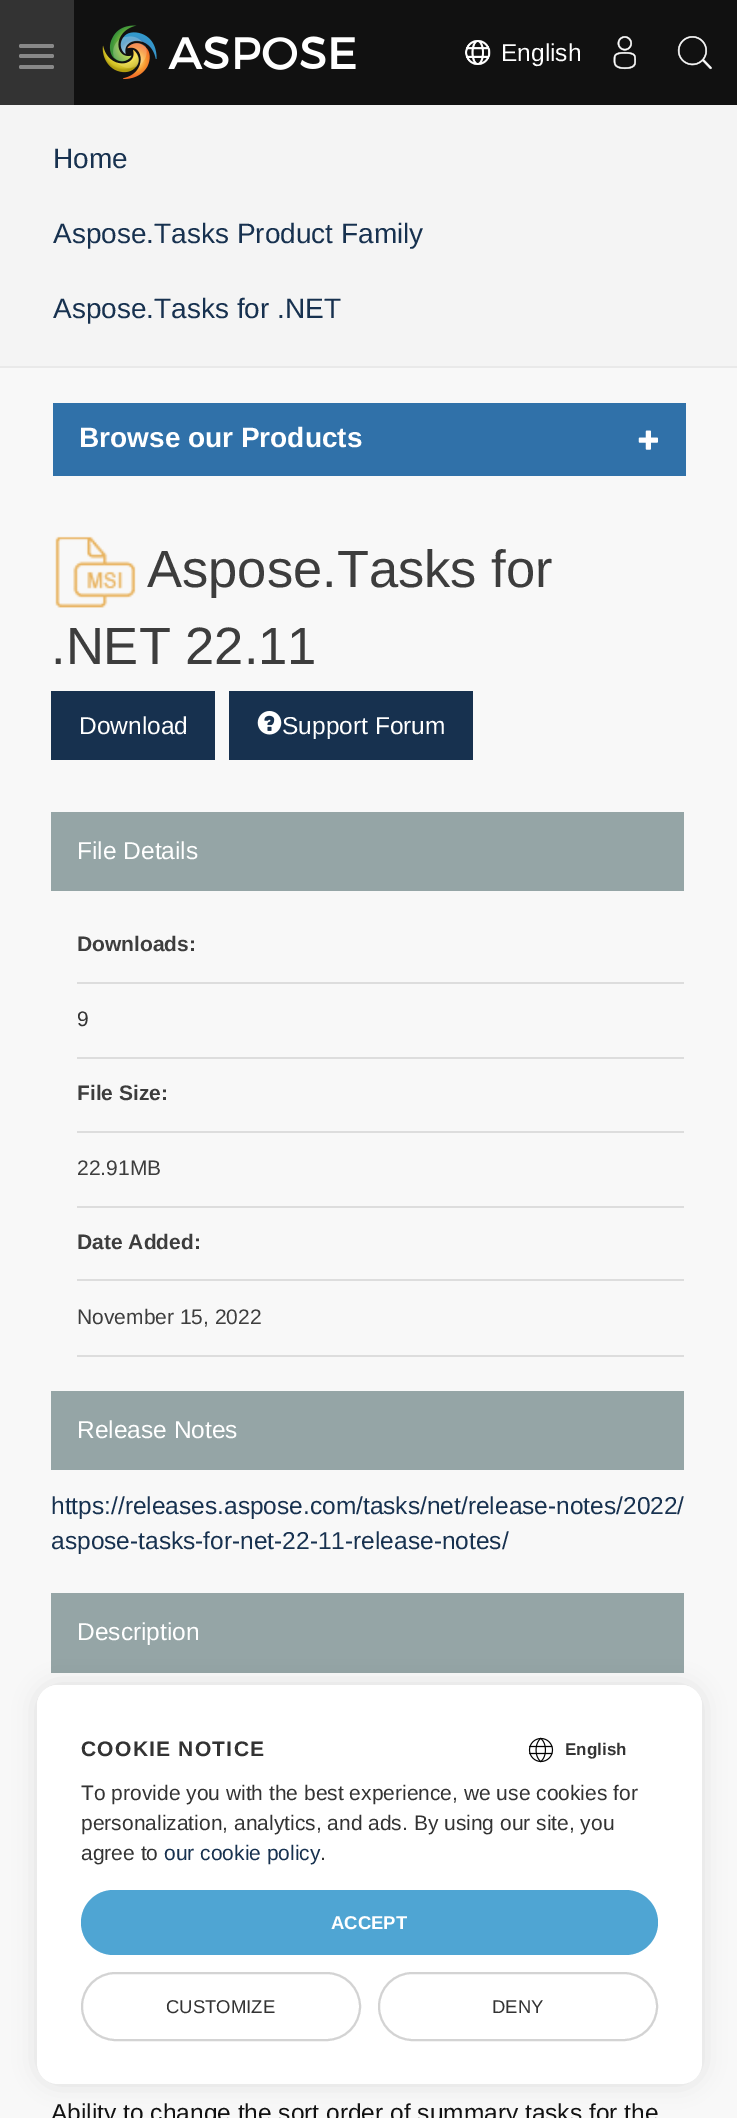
%!PS
<< /PageSize [737 2118] /PageUsesTransparency true >> setpagedevice
/rgb { dup -16 bitshift 255 div exch dup -8 bitshift 255 and 255 div exch 255 and 255 div setrgbcolor } def
/font { [ exch dup neg 0 0 3 -1 roll 0 0 ] selectfont } def
/text { moveto show } def
/alpha { dup .setfillconstantalpha .setstrokeconstantalpha } def
/roundrect { 5 dict begin { /r /h /w /y /x } { exch def } forall
  x r add y moveto x w add y 2 copy h add r arct x w add y h add x 1 index r arct
  x y h add x y r arct x y 2 copy exch w add exch r arct closepath end } def
/shadow { 12 dict begin { /a /b /q /h /w /y /x } { exch def } forall gsave /was 0 def
  9 -2 -9 { dup b mul 4 div /e exch def 1 sub .425 mul 2.718 exch exp 1 add a .99 .min exch div /now exch def
    1 1 now sub 1 was sub div sub alpha /was now def
    w h .min e 2 mul add 0 gt { x e sub y e sub w e 2 mul add h e 2 mul add
      q e add b .6 mul add w h .min 2 div e add .min 0 .max roundrect fill } if } for grestore end } def
/picture { 5 dict begin { /h /w /y /x /name } { exch def } forall
  gsave x y translate w h scale
  w h 8 [w 0 0 h 0 0] name (r) file false 3 colorimage grestore end } def
0 .pushpdf14devicefilter
0 2118 translate 1 -1 scale
4 setmiterlimit
/s1 { /LiberationSans-Regular 24.5 font 16#FFFFFF rgb } def
/s2 { /LiberationSans-Regular 28 font 16#17314F rgb } def
/s3 { /LiberationSans-Bold 28 font 16#FFFFFF rgb } def
/s4 { /LiberationSans-Regular 52.5 font 16#3D3D3D rgb } def
/s5 { /LiberationSans-Bold 21 font 16#3D3D3D rgb } def
/s6 { /LiberationSans-Regular 21 font 16#333333 rgb } def
/s7 { /LiberationSans-Regular 21 font 16#3D3D3D rgb } def
/s8 { /LiberationSans-Regular 24.5 font 16#17314F rgb } def
/s9 { /LiberationSans-Regular 24.5 font 16#121212 rgb } def
/s10 { /LiberationSans-Bold 17 font 16#333333 rgb } def
/s11 { /LiberationSans-Regular 21 font 16#17314F rgb } def
/s12 { /LiberationSans-Bold 18.5 font 16#FFFFFF rgb } def
/s13 { /LiberationSans-Regular 18.5 font 16#333333 rgb } def
16#F4F4F4 rgb
0 0 737 2118 rectfill
16#111111 rgb
74 0 663 105 rectfill
16#333333 rgb
0 0 74 105 rectfill
16#888888 rgb
19 44 35 4 2 roundrect fill
19 54 35 4 2 roundrect fill
19 65 35 4 2 roundrect fill
(pic1.raw) 102 25 254 55 picture
(pic2.raw) 465 40 26 25 picture
s1
(English) 501 61 text
(pic3.raw) 613 36 23 34 picture
(pic4.raw) 677 36 35 34 picture
16#E9E9E9 rgb
0 366 737 2 rectfill
s2
(Home) 53 168 text
(Aspose.Tasks Product Family) 53 243 text
(Aspose.Tasks for .NET) 53 318 text
16#F8F8F8 rgb
0 368 737 1750 rectfill
16#3071A9 rgb
53 403 633 73 rectfill
s3
(Browse our Products) 79 447 text
(pic5.raw) 638 430 20 20 picture
(pic6.raw) 55 536 81 72 picture
s4
(Aspose.Tasks for) 147 587 text
(.NET 22.11) 51 664 text
16#17314F rgb
51 691 164 69 rectfill
s1
(Download) 79 734 text
16#17314F rgb
229 691 244 69 rectfill
(pic7.raw) 257 711 25 24 picture
s1
(Support Forum) 282 734 text
16#95A5A6 rgb
51 812 633 79 rectfill
s1
(File Details) 77 859 text
16#DDDDDD rgb
77 982 607 2 rectfill
s5
(Downloads:) 77 951 text
16#DDDDDD rgb
77 1057 607 2 rectfill
s6
(9) 77 1026 text
16#DDDDDD rgb
77 1131 607 2 rectfill
s5
(File Size:) 77 1100 text
16#DDDDDD rgb
77 1206 607 2 rectfill
s7
(22.91MB) 77 1175 text
16#DDDDDD rgb
77 1279 607 2 rectfill
s5
(Date Added:) 77 1249 text
16#DDDDDD rgb
77 1355 607 2 rectfill
s7
(November 15, 2022) 77 1324 text
16#95A5A6 rgb
51 1391 633 79 rectfill
s1
(Release Notes) 77 1438 text
s8
(https://releases.aspose.com/tasks/net/release-notes/2022/) 51 1514 text
(aspose-tasks-for-net-22-11-release-notes/) 51 1549 text
16#95A5A6 rgb
51 1593 633 80 rectfill
s1
(Description) 77 1640 text
s9
(Ability to change the sort order of summary tasks for the) 51 2121 text
16#000000 rgb
37 1685 665 399 21 11.5 0.1 shadow
16#FFFFFF rgb
37 1685 665 399 21 roundrect fill
58 1685 moveto 681 1685 lineto 692.5 1685 702 1694.5 702 1706 curveto 702 1771 lineto 37 1771 lineto 37 1706 lineto 37 1694.5 46.5 1685 58 1685 curveto closepath fill
/LiberationSans-Bold 21 font
16#333333 rgb
81 1756 moveto 1.25 0 (COOKIE NOTICE) ashow
(pic8.raw) 528 1737 26 26 picture
s10
(English) 565 1755 text
s6
(To provide you with the best experience, we use cookies for) 81 1800 text
(personalization, analytics, and ads. By using our site, you) 81 1830 text
(agree to) 81 1860 text
s11
(our cookie policy) 164 1860 text
s6
(.) 320 1860 text
16#4FA5D3 rgb
81 1890 577 65 32.5 roundrect fill
s12
(ACCEPT) 331 1929 text
16#D3D3D3 rgb
2 setlinewidth
82 1973 278 67 33.5 roundrect stroke
s13
(CUSTOMIZE) 166 2013 text
16#D3D3D3 rgb
379 1973 278 67 33.5 roundrect stroke
s13
(DENY) 492 2013 text
.poppdf14devicefilter showpage
